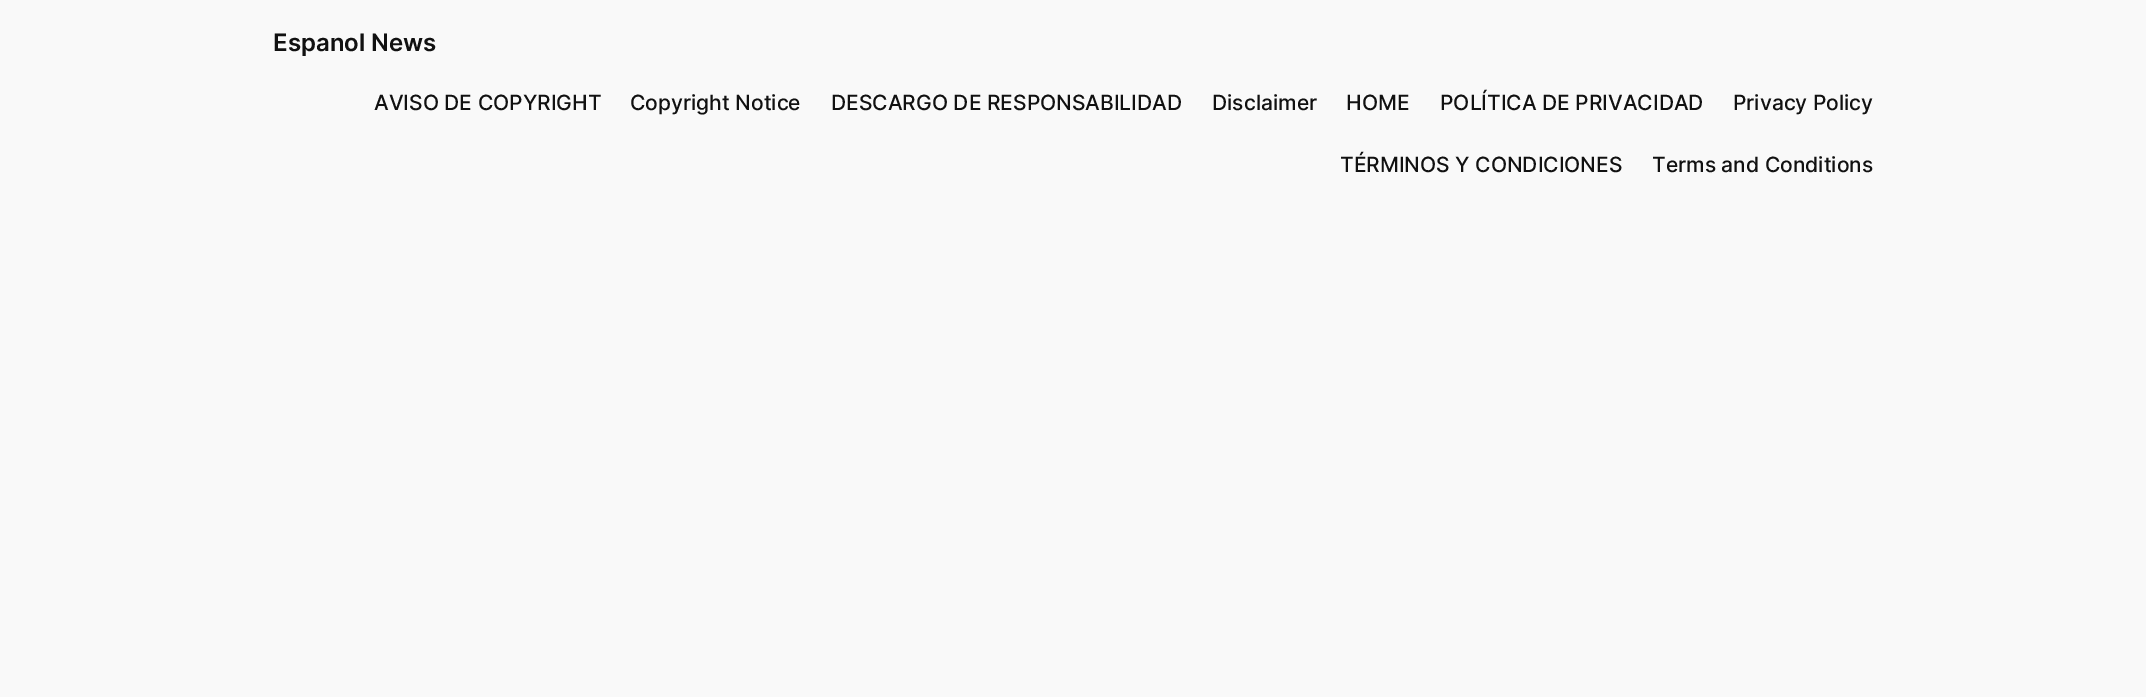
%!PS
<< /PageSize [2146 697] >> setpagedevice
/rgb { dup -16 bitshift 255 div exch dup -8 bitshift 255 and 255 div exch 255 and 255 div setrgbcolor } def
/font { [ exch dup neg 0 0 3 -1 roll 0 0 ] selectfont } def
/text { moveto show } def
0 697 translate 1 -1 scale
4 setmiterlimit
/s1 { /Inter-SemiBold 24 font 16#111111 rgb } def
/s2 { /Inter-Medium 21 font 16#111111 rgb } def
16#F9F9F9 rgb
0 0 2146 697 rectfill
s1
(Espanol News) 273 51 text
s2
(AVISO DE COPYRIGHT) 374 110 text
(Copyright Notice) 630 110 text
(DESCARGO DE RESPONSABILIDAD) 831 110 text
(Disclaimer) 1212 110 text
(HOME) 1346 110 text
(POLÍTICA DE PRIVACIDAD) 1440 110 text
(Privacy Policy) 1733 110 text
(TÉRMINOS Y CONDICIONES) 1340 172 text
(Terms and Conditions) 1652 172 text
showpage
